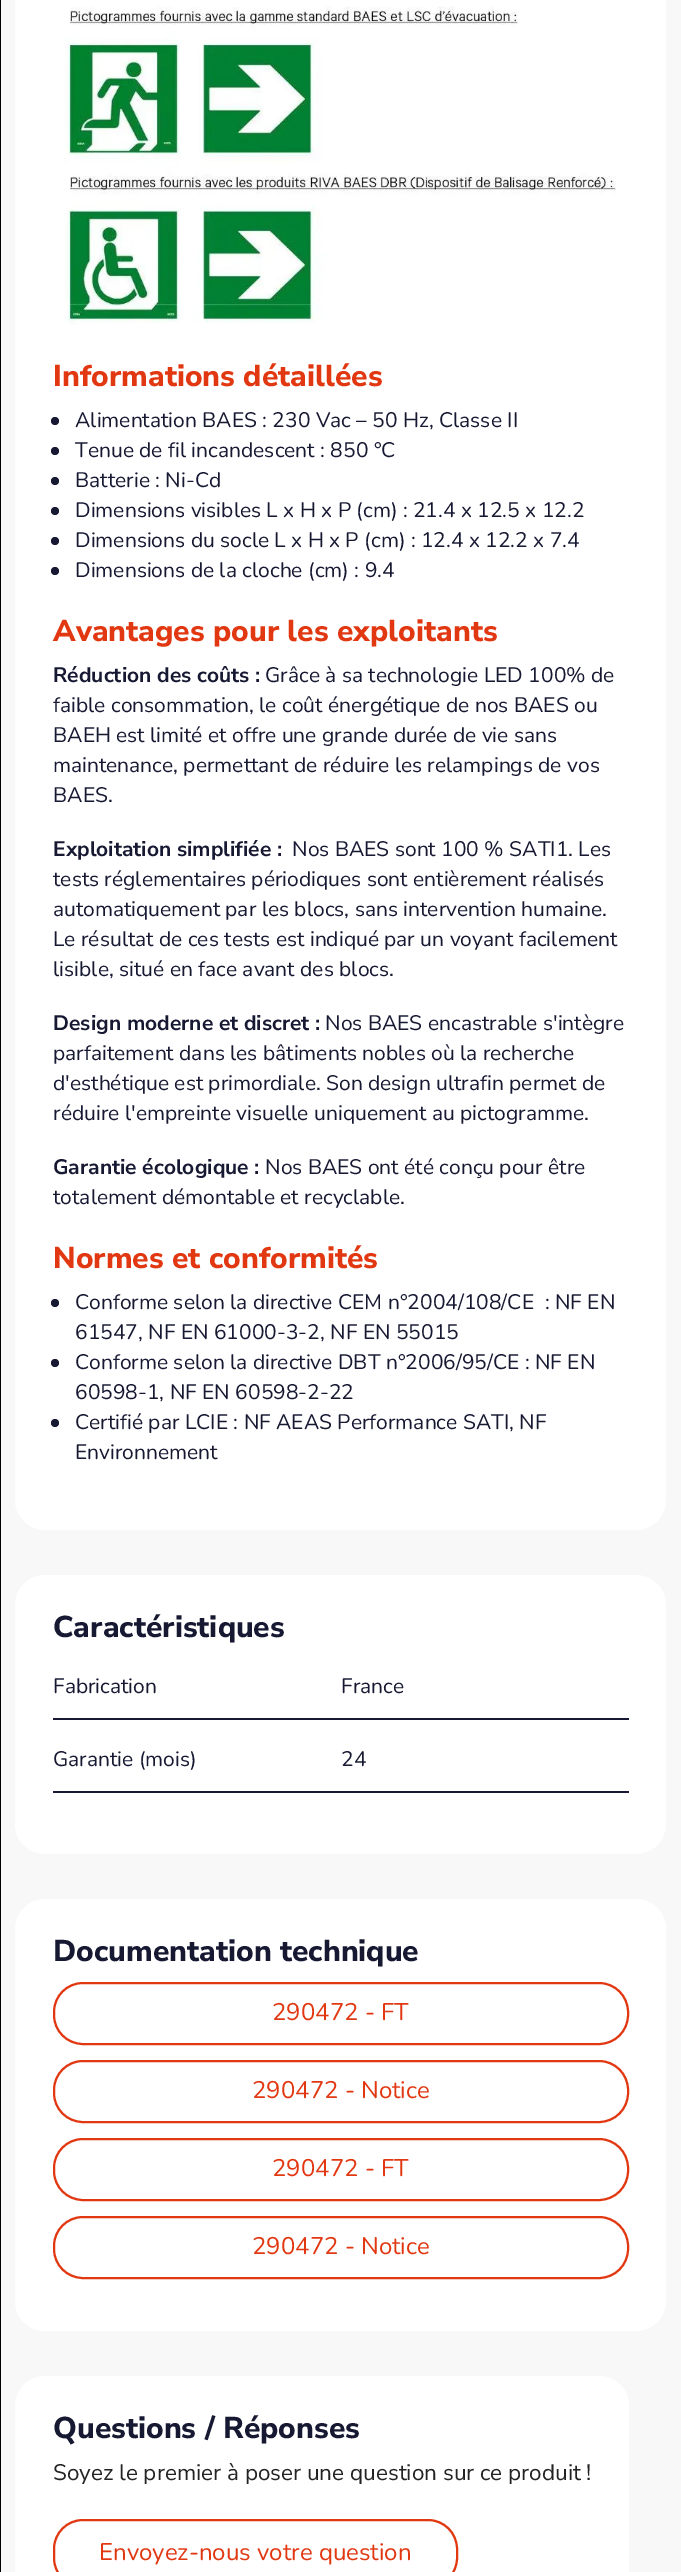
%!PS
<< /PageSize [681 2572] >> setpagedevice
/rgb { dup -16 bitshift 255 div exch dup -8 bitshift 255 and 255 div exch 255 and 255 div setrgbcolor } def
/font { [ exch dup neg 0 0 3 -1 roll 0 0 ] selectfont } def
/text { moveto show } def
/circle { newpath 0 360 arc closepath } def
/roundrect { 5 dict begin { /r /h /w /y /x } { exch def } forall
  x r add y moveto x w add y 2 copy h add r arct x w add y h add x 1 index r arct
  x y h add x y r arct x y 2 copy exch w add exch r arct closepath end } def
/picture { 5 dict begin { /h /w /y /x /name } { exch def } forall
  gsave x y translate w h scale
  w h 8 [w 0 0 h 0 0] name (r) file false 3 colorimage grestore end } def
0 2572 translate 1 -1 scale
4 setmiterlimit
/s1 { /NunitoSans-ExtraBold 30 font 16#E23812 rgb } def
/s2 { /Nunito-ExtraLight 21 font 16#171933 rgb } def
/s3 { /NunitoSans-Bold 21 font 16#171933 rgb } def
/s4 { /NunitoSans-Regular 21 font 16#171933 rgb } def
/s5 { /NunitoSans-ExtraBold 30 font 16#171933 rgb } def
/s6 { /Nunito-ExtraLight 24 font 16#E23812 rgb } def
/s7 { /NunitoSans-Regular 22.5 font 16#232323 rgb } def
16#F8F8F8 rgb
0 0 681 2572 rectfill
16#000000 rgb
0 0 1 2572 rectfill
16#FFFFFF rgb
15 -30 651 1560 30 roundrect fill
(pic1.raw) 64 6 552 319 picture
s1
(Informations détaillées) 53 386 text
16#171933 rgb
55 421 4 circle fill
s2
(Alimentation BAES : 230 Vac – 50 Hz, Classe II) 75 427 text
55 451 4 circle fill
(Tenue de fil incandescent : 850 °C) 75 457 text
55 481 4 circle fill
(Batterie : Ni-Cd) 75 487 text
55 511 4 circle fill
(Dimensions visibles L x H x P \(cm\) : 21.4 x 12.5 x 12.2) 75 517 text
55 541 4 circle fill
(Dimensions du socle L x H x P \(cm\) : 12.4 x 12.2 x 7.4) 75 547 text
55 571 4 circle fill
(Dimensions de la cloche \(cm\) : 9.4) 75 577 text
s1
(Avantages pour les exploitants) 53 641 text
s3
(Réduction des coûts :) 53 682 text
s4
(Grâce à sa technologie LED 100% de) 265 682 text
(faible consommation, le coût énergétique de nos BAES ou) 53 712 text
(BAEH est limité et offre une grande durée de vie sans) 53 742 text
(maintenance, permettant de réduire les relampings de vos) 53 772 text
(BAES.) 53 802 text
s3
(Exploitation simplifiée :) 53 856 text
s4
(Nos BAES sont 100 % SATI1. Les) 292 856 text
(tests réglementaires périodiques sont entièrement réalisés) 53 886 text
(automatiquement par les blocs, sans intervention humaine.) 53 916 text
(Le résultat de ces tests est indiqué par un voyant facilement) 53 946 text
(lisible, situé en face avant des blocs.) 53 976 text
s3
(Design moderne et discret :) 53 1030 text
s4
(Nos BAES encastrable s'intègre) 325 1030 text
(parfaitement dans les bâtiments nobles où la recherche) 53 1060 text
(d'esthétique est primordiale. Son design ultrafin permet de) 53 1090 text
(réduire l'empreinte visuelle uniquement au pictogramme.) 53 1120 text
s3
(Garantie écologique :) 53 1174 text
s4
(Nos BAES ont été conçu pour être) 265 1174 text
(totalement démontable et recyclable.) 53 1204 text
s1
(Normes et conformités) 53 1268 text
16#171933 rgb
55 1303 4 circle fill
s2
(Conforme selon la directive CEM n°2004/108/CE  : NF EN) 75 1309 text
(61547, NF EN 61000-3-2, NF EN 55015) 75 1339 text
55 1363 4 circle fill
(Conforme selon la directive DBT n°2006/95/CE : NF EN) 75 1369 text
(60598-1, NF EN 60598-2-22) 75 1399 text
55 1423 4 circle fill
(Certifié par LCIE : NF AEAS Performance SATI, NF) 75 1429 text
(Environnement) 75 1459 text
16#FFFFFF rgb
15 1575 651 279 30 roundrect fill
s5
(Caractéristiques) 53 1637 text
s2
(Fabrication) 53 1693 text
53 1718 576 2 rectfill
(France) 341 1693 text
(Garantie \(mois\)) 53 1766 text
53 1791 576 2 rectfill
(24) 341 1766 text
16#FFFFFF rgb
15 1899 651 432 30 roundrect fill
s5
(Documentation technique) 53 1961 text
16#E23812 rgb
2 setlinewidth
54 1983 574 61 29 roundrect stroke
s6
(290472 - FT) 272 2020 text
54 2061 574 61 29 roundrect stroke
(290472 - Notice) 252 2098 text
54 2139 574 61 29 roundrect stroke
(290472 - FT) 272 2176 text
54 2217 574 61 29 roundrect stroke
(290472 - Notice) 252 2254 text
16#FFFFFF rgb
15 2376 614 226 30 roundrect fill
s5
(Questions / Réponses) 53 2438 text
s7
(Soyez le premier à poser une question sur ce produit !) 53 2480 text
16#E23812 rgb
54 2520 403 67 29 roundrect stroke
s6
(Envoyez-nous votre question) 99 2560 text
showpage
